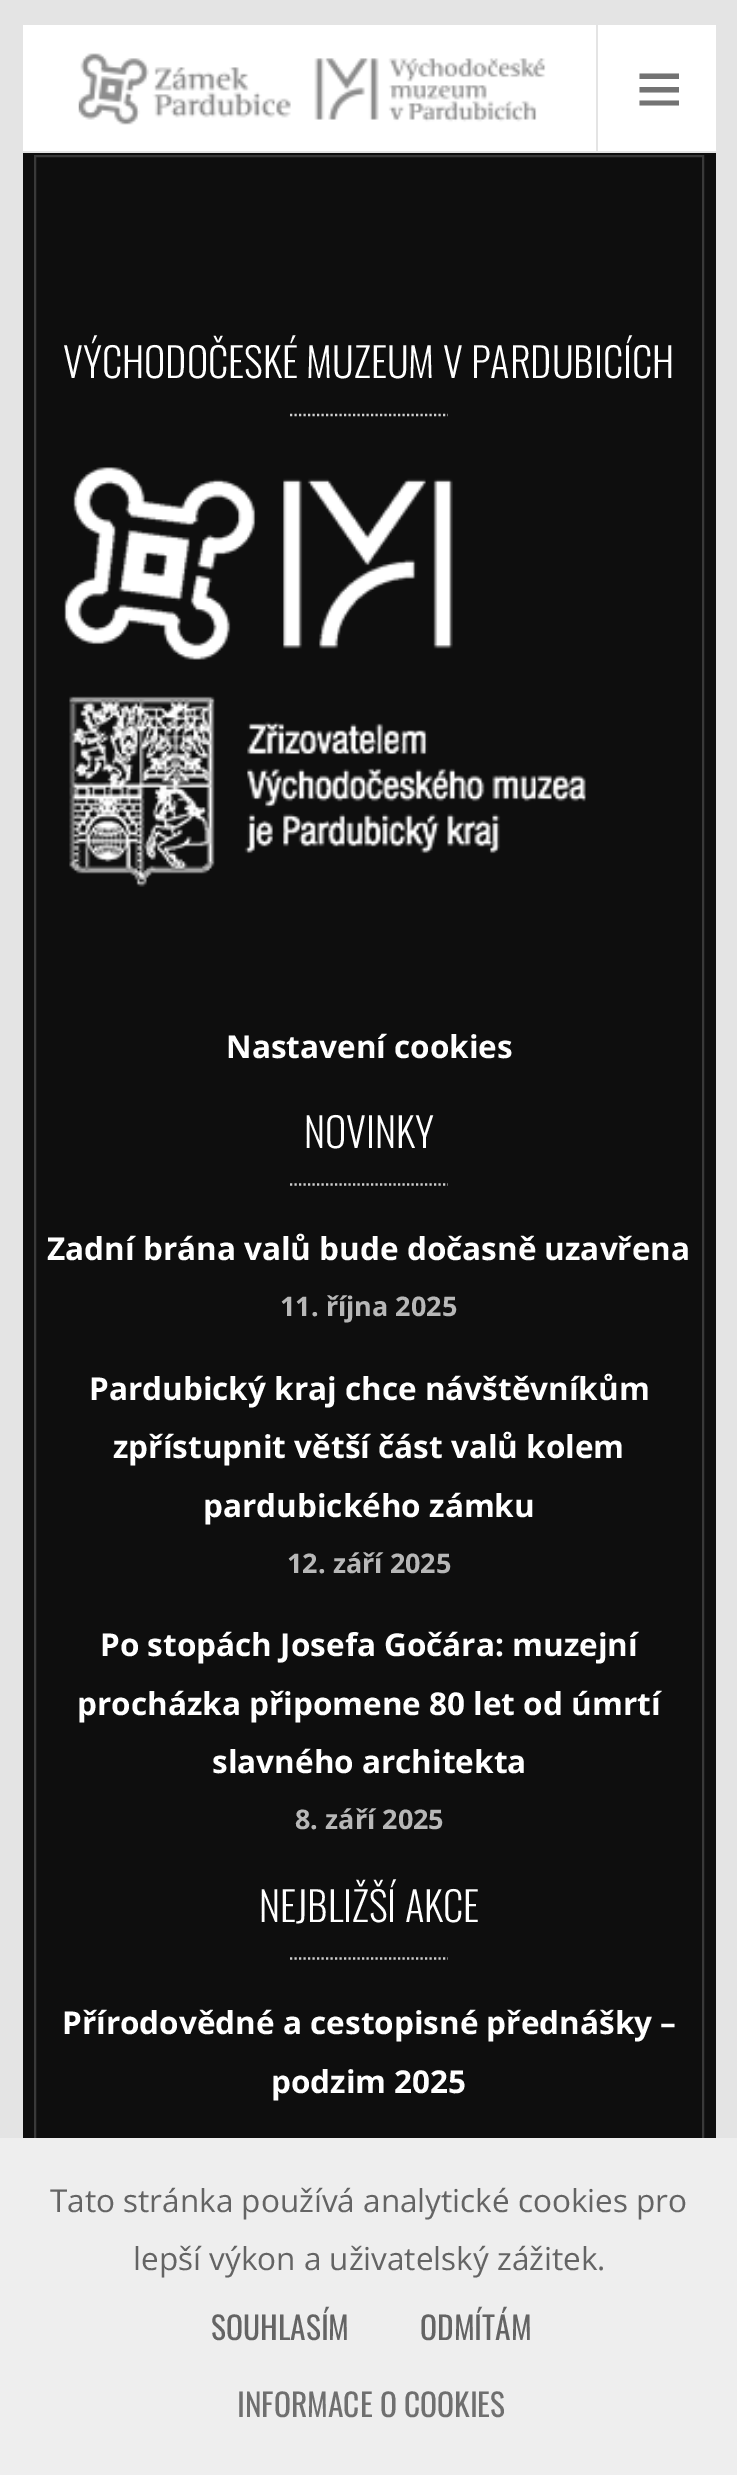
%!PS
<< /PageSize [737 2475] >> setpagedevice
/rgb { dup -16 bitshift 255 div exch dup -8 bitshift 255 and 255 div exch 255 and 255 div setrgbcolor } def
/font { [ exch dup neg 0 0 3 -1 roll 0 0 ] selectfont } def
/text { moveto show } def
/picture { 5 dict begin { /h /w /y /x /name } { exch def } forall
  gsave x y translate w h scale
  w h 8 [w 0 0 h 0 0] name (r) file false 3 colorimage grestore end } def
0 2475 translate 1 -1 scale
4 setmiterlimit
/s1 { /Oswald-Light 40.5 font 16#FFFFFF rgb } def
/s2 { /OpenSans-Bold 31.5 font 16#FFFFFF rgb } def
/s3 { /OpenSans-Bold 27 font 16#B7B7B7 rgb } def
/s4 { /OpenSans-Regular 31.5 font 16#646464 rgb } def
/s5 { /Oswald-Regular 31.5 font 16#646464 rgb } def
/s6 { /Oswald-Regular 31.5 font 16#6F6F6F rgb } def
16#0E0E0E rgb
0 0 737 2475 rectfill
16#E4E4E4 rgb
0 0 737 23 rectfill
0 23 23 2115 rectfill
16#FFFFFF rgb
23 25 693 126 rectfill
16#E4E4E4 rgb
23 23 693 2 rectfill
23 151 693 2 rectfill
(pic1.raw) 78 53 468 72 picture
596 25 2 126 rectfill
16#737373 rgb
679 73.5 moveto 679 79 lineto 639.5 79 lineto 639.5 73.5 lineto closepath 639.5 92.5 moveto 679 92.5 lineto 679 87 lineto 639.5 87 lineto closepath 639.5 105.5 moveto 679 105.5 lineto 679 100.5 lineto 639.5 100.5 lineto closepath fill
16#393939 rgb
2 setlinewidth
35 156 668 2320 rectstroke
s1
(VÝCHODOČESKÉ MUZEUM V PARDUBICÍCH) 63 378 text
16#CFCFCF rgb
2.2 setlinewidth
[2.25 2.25] 0 setdash
290 415 moveto 448 415 lineto stroke
(pic2.raw) 64 467 389 193 picture
(pic3.raw) 69 696 517 191 picture
s2
(Nastavení cookies) 226 1058 text
s1
(NOVINKY) 304 1148 text
16#CFCFCF rgb
290 1184.5 moveto 448 1184.5 lineto stroke
s2
(Zadní brána valů bude dočasně uzavřena) 47 1260 text
s3
(11. října 2025) 280 1316 text
s2
(Pardubický kraj chce návštěvníkům) 89 1400 text
(zpřístupnit větší část valů kolem) 113 1458 text
(pardubického zámku) 203 1517 text
s3
(12. září 2025) 287 1573 text
s2
(Po stopách Josefa Gočára: muzejní) 100 1656 text
(procházka připomene 80 let od úmrtí) 77 1715 text
(slavného architekta) 212 1773 text
s3
(8. září 2025) 295 1829 text
s1
(NEJBLIŽŠÍ AKCE) 259 1922 text
16#CFCFCF rgb
290 1958.5 moveto 448 1958.5 lineto stroke
s2
(Přírodovědné a cestopisné přednášky –) 62 2034 text
(podzim 2025) 271 2093 text
16#E4E4E4 rgb
716 23 21 2115 rectfill
16#EEEEEE rgb
0 2138 737 337 rectfill
s4
(Tato stránka používá analytické cookies pro) 50 2212 text
(lepší výkon a uživatelský zážitek.) 133 2270 text
s5
(SOUHLASÍM) 211 2340 text
(ODMÍTÁM) 420 2340 text
s6
(INFORMACE O COOKIES) 237 2417 text
showpage
